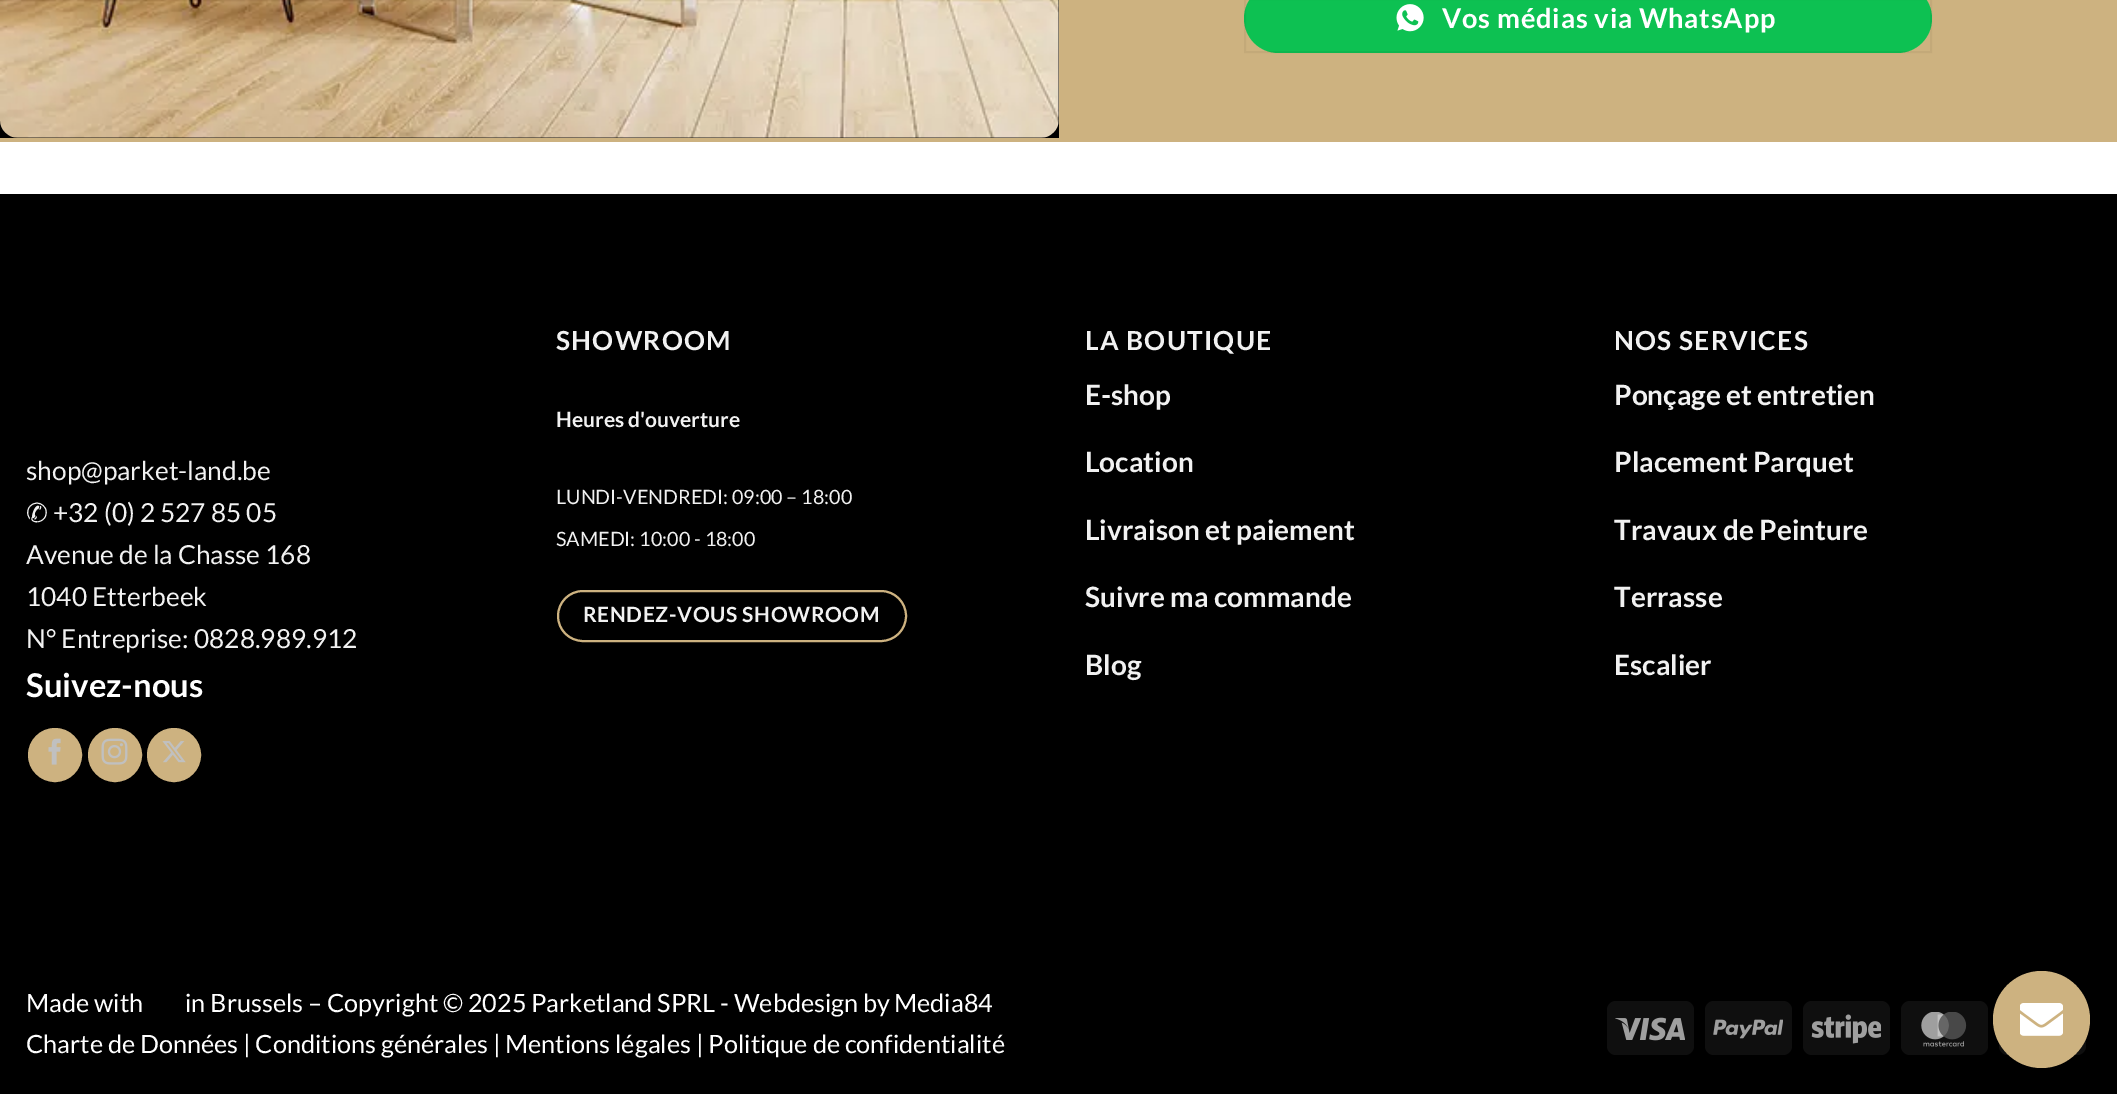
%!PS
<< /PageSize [2117 1094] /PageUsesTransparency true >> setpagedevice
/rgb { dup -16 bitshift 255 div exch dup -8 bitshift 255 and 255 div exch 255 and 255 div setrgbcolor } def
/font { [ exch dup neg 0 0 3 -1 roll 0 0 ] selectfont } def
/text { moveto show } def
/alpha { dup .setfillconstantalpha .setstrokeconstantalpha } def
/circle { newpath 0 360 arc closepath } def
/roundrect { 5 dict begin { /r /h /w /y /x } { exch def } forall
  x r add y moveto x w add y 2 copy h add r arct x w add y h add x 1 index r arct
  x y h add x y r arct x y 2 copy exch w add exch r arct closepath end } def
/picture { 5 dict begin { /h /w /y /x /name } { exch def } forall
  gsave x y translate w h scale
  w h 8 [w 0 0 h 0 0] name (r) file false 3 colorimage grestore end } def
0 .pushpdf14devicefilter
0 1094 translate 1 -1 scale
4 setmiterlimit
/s1 { /Lato-Regular 26.25 font 16#F1F1F1 rgb } def
/s2 { /DejaVuSans-Regular 26.25 font 16#F1F1F1 rgb } def
/s3 { /Lato-Bold 32.75 font 16#FFFFFF rgb } def
/s4 { /Lato-Bold 21 font 16#F1F1F1 rgb } def
/s5 { /Lato-Regular 19.75 font 16#F1F1F1 rgb } def
/s6 { /Lato-Bold 28 font 16#F1F1F1 rgb } def
/s7 { /Lato-Regular 25.2 font 16#FFFFFF rgb } def
16#FFFFFF rgb
0 0 2117 1094 rectfill
16#CDB280 rgb
0 0 2117 142 rectfill
16#000000 rgb
0 0 1059 138 rectfill
(pic1.raw) 0 0 1059 138 picture
16#0DC152 rgb
1244 -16 688 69 34.5 roundrect fill
0.05 alpha
16#000000 rgb
2 setlinewidth
1245 -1 686 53 rectstroke
1 alpha
(pic2.raw) 1396 4 28 28 picture
/Lato-Bold 27.2 font
16#FFFFFF rgb
1442 28 moveto 0.8 0 (Vos médias via WhatsApp) ashow
16#000000 rgb
0 194 2117 900 rectfill
s1
(shop@parket-land.be) 26 480 text
s2
(✆) 26 522 text
s1
(+32 \(0\) 2 527 85 05) 53 522 text
(Avenue de la Chasse 168) 26 564 text
(1040 Etterbeek) 26 606 text
(N° Entreprise: 0828.989.912) 26 648 text
s3
(Suivez-nous) 26 697 text
16#CDB280 rgb
55 755 26 circle gsave fill grestore
stroke
(pic3.raw) 48 738 13 27 picture
115 755 26 circle gsave fill grestore
stroke
(pic4.raw) 101 738 27 27 picture
174 755 26 circle gsave fill grestore
stroke
(pic5.raw) 162 741 24 22 picture
/Lato-Bold 26.25 font
16#F1F1F1 rgb
556 350 moveto 1.25 0 (SHOWROOM) ashow
s4
(Heures d'ouverture) 556 427 text
s5
(LUNDI-VENDREDI: 09:00 – 18:00) 556 504 text
(SAMEDI: 10:00 - 18:00) 556 546 text
16#CDB280 rgb
558 591 348 50 25 roundrect stroke
/Lato-Bold 21 font
16#F1F1F1 rgb
583 622 moveto 0.6 0 (RENDEZ-VOUS SHOWROOM) ashow
/Lato-Bold 26.25 font
1085 350 moveto 1.25 0 (LA BOUTIQUE) ashow
s6
(E-shop) 1085 405 text
(Location) 1085 472 text
(Livraison et paiement) 1085 540 text
(Suivre ma commande) 1085 607 text
(Blog) 1085 675 text
/Lato-Bold 26.25 font
1614 350 moveto 1.25 0 (NOS SERVICES) ashow
s6
(Ponçage et entretien) 1614 405 text
(Placement Parquet) 1614 472 text
(Travaux de Peinture) 1614 540 text
(Terrasse) 1614 607 text
(Escalier) 1614 675 text
s7
(Made with) 26 1012 text
(in Brussels – Copyright © 2025 Parketland SPRL - Webdesign by) 185 1012 text
(Media84) 894 1012 text
(Charte de Données | Conditions générales | Mentions légales | Politique de confidentialité) 26 1053 text
16#0F0F0F rgb
1607 1001 87 54 9 roundrect fill
(pic6.raw) 1615 1017 70 24 picture
1705 1001 87 54 9 roundrect fill
(pic7.raw) 1713 1019 70 20 picture
1803 1001 87 54 9 roundrect fill
(pic8.raw) 1811 1014 70 30 picture
1901 1001 87 54 9 roundrect fill
(pic9.raw) 1921 1012 46 35 picture
1999 1001 87 54 9 roundrect fill
16#CDB280 rgb
2041.5 1019.5 48.5 circle fill
(pic10.raw) 2020 1003 43 33 picture
.poppdf14devicefilter showpage
